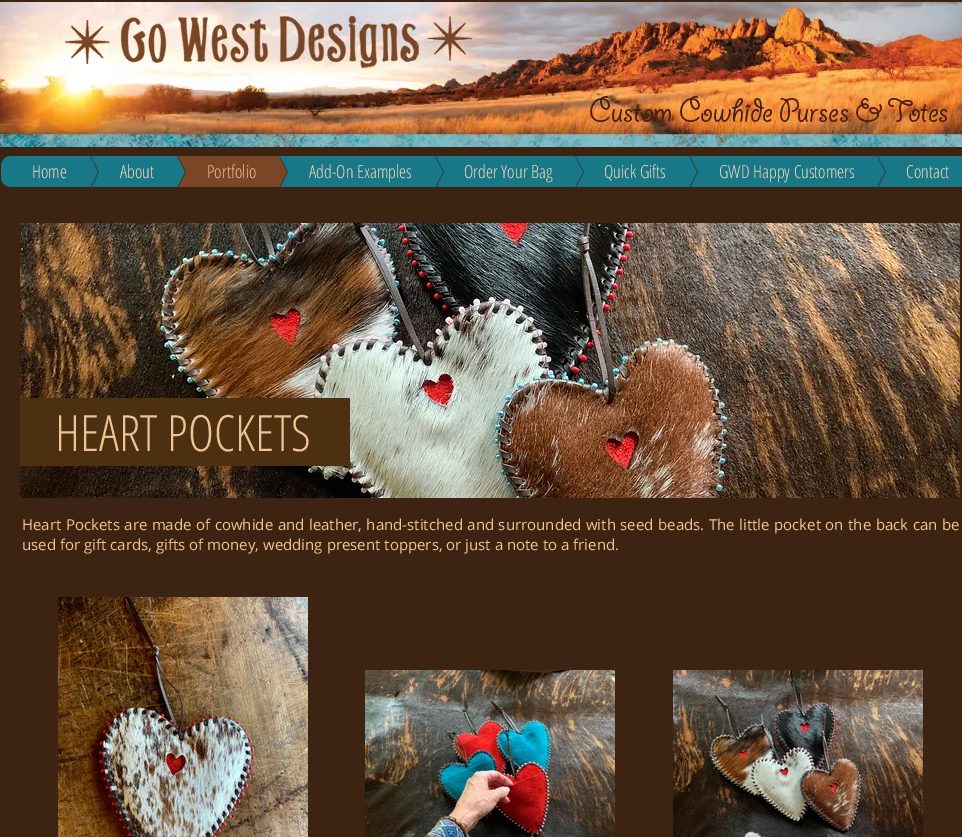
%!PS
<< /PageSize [962 837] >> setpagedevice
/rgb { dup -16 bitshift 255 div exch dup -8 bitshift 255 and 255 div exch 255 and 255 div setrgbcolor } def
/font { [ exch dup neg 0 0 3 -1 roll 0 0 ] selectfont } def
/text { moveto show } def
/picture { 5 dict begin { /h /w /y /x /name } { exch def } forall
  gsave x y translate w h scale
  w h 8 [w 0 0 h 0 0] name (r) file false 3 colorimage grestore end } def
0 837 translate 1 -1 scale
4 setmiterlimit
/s1 { /OpenSansCondensed-Light 18 font 16#F7D9B8 rgb } def
/s2 { /OpenSansCondensed-Light 18 font 16#EFC394 rgb } def
/s3 { /OpenSansCondensed-Light 50 font 16#EFC394 rgb } def
/s4 { /OpenSans-Regular 15 font 16#EFC394 rgb } def
16#3D2312 rgb
0 0 962 837 rectfill
(pic1.raw) 0 2 962 145 picture
16#187887 rgb
11 156 moveto 28 156 lineto 28 187 lineto 11 187 lineto 5.5 187 1 182.5 1 177 curveto 1 166 lineto 1 160.5 5.5 156 11 156 curveto closepath fill
gsave
28 156 70 31 rectclip
98 172 moveto 28 172 lineto 28 32 lineto closepath fill
28 172 moveto 98 172 lineto 28 312 lineto closepath fill
grestore
s1
(Home) 32 178 text
gsave
29 156 70 31 rectclip
16#187887 rgb
29 32 moveto 99 32 lineto 99 172 lineto closepath 99 312 moveto 29 312 lineto 99 172 lineto closepath fill
grestore
16#187887 rgb
99 156 16 31 rectfill
gsave
115 156 70 31 rectclip
185 172 moveto 115 172 lineto 115 32 lineto closepath fill
115 172 moveto 185 172 lineto 115 312 lineto closepath fill
grestore
s1
(About) 120 178 text
gsave
116 156 70 31 rectclip
16#7A4625 rgb
116 32 moveto 186 32 lineto 186 172 lineto closepath 186 312 moveto 116 312 lineto 186 172 lineto closepath fill
grestore
16#7A4625 rgb
186 156 31 31 rectfill
gsave
217 156 70 31 rectclip
287 172 moveto 217 172 lineto 217 32 lineto closepath fill
217 172 moveto 287 172 lineto 217 312 lineto closepath fill
grestore
s2
(Portfolio) 207 178 text
gsave
218 156 70 31 rectclip
16#187887 rgb
218 32 moveto 288 32 lineto 288 172 lineto closepath 288 312 moveto 218 312 lineto 288 172 lineto closepath fill
grestore
16#187887 rgb
288 156 85 31 rectfill
gsave
373 156 70 31 rectclip
443 172 moveto 373 172 lineto 373 32 lineto closepath fill
373 172 moveto 443 172 lineto 373 312 lineto closepath fill
grestore
s1
(Add-On Examples) 309 178 text
gsave
374 156 70 31 rectclip
16#187887 rgb
374 32 moveto 444 32 lineto 444 172 lineto closepath 444 312 moveto 374 312 lineto 444 172 lineto closepath fill
grestore
16#187887 rgb
444 156 69 31 rectfill
gsave
513 156 70 31 rectclip
583 172 moveto 513 172 lineto 513 32 lineto closepath fill
513 172 moveto 583 172 lineto 513 312 lineto closepath fill
grestore
s1
(Order Your Bag) 464 178 text
gsave
514 156 70 31 rectclip
16#187887 rgb
514 32 moveto 584 32 lineto 584 172 lineto closepath 584 312 moveto 514 312 lineto 584 172 lineto closepath fill
grestore
16#187887 rgb
584 156 43 31 rectfill
gsave
627 156 70 31 rectclip
697 172 moveto 627 172 lineto 627 32 lineto closepath fill
627 172 moveto 697 172 lineto 627 312 lineto closepath fill
grestore
s1
(Quick Gifts) 604 178 text
gsave
628 156 70 31 rectclip
16#187887 rgb
628 32 moveto 698 32 lineto 698 172 lineto closepath 698 312 moveto 628 312 lineto 698 172 lineto closepath fill
grestore
16#187887 rgb
698 156 117 31 rectfill
gsave
815 156 70 31 rectclip
885 172 moveto 815 172 lineto 815 32 lineto closepath fill
815 172 moveto 885 172 lineto 815 312 lineto closepath fill
grestore
s1
(GWD Happy Customers) 719 178 text
gsave
816 156 70 31 rectclip
16#187887 rgb
816 32 moveto 886 32 lineto 886 172 lineto closepath 886 312 moveto 816 312 lineto 886 172 lineto closepath fill
grestore
16#187887 rgb
886 156 76 31 rectfill
s1
(Contact) 906 178 text
(pic2.raw) 20 223 940 275 picture
16#4D3012 rgb
20 398 330 68 rectfill
s3
(HEART POCKETS) 55 451 text
/OpenSans-Regular 15 font
22 530 moveto 0.6 0 32 (Heart Pockets are made of cowhide and leather, hand-stitched and surrounded with seed beads. The little pocket on the back can be) widthshow
(used for gift cards, gifts of money, wedding present toppers, or just a note to a friend.) 22 550 text
(pic3.raw) 58 597 250 240 picture
(pic4.raw) 365 670 250 167 picture
(pic5.raw) 673 670 250 167 picture
showpage
